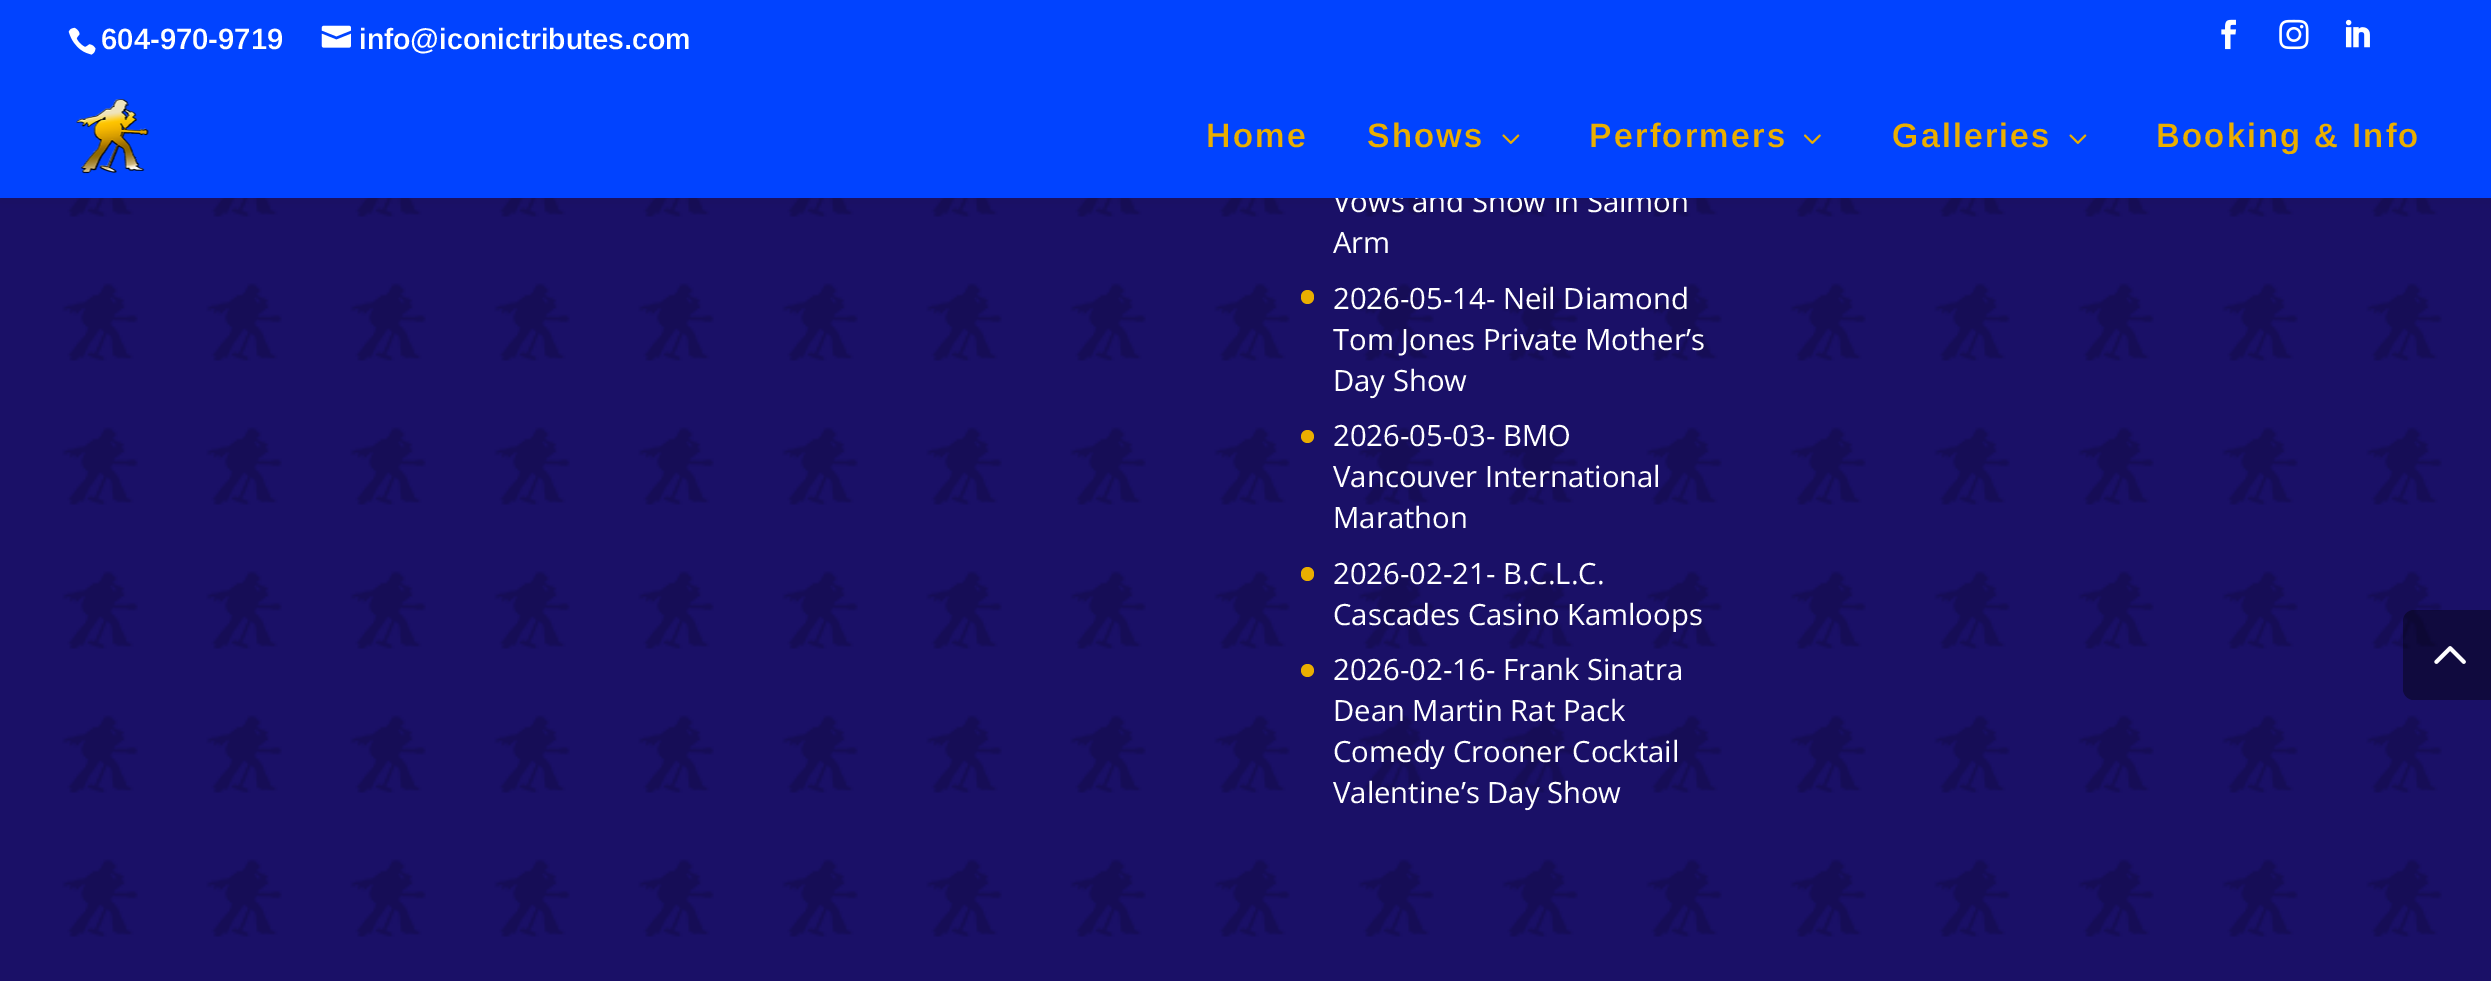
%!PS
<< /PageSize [2491 981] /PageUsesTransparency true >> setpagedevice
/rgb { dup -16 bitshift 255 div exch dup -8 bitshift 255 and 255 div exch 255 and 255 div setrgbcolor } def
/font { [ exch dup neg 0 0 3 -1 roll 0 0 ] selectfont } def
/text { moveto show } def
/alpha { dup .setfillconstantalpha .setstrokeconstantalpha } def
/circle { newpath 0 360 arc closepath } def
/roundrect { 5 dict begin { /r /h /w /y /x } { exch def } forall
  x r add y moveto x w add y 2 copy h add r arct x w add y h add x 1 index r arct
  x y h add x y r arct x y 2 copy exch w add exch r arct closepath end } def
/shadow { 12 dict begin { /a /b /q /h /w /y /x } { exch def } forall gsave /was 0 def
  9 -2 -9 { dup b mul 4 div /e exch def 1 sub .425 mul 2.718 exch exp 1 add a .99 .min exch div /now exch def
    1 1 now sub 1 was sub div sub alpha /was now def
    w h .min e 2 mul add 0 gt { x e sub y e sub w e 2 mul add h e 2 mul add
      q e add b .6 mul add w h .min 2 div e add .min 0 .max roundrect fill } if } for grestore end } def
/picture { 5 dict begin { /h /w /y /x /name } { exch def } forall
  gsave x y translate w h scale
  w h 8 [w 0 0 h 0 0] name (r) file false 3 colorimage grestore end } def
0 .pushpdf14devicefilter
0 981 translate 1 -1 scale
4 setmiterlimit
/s1 { /OpenSans-Regular 29.25 font 16#FFFFFF rgb } def
/s2 { /Arimo-SemiBold 29.25 font 16#FFFFFF rgb } def
16#FFFFFF rgb
0 0 2491 981 rectfill
(pic9.raw) 0 198 2491 783 picture
16#000000 rgb
0 77 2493 121 0 8 0.1 shadow
s1
(Vows and Show in Salmon) 1333 212 text
16#0143FF rgb
0 0 2491 198 rectfill
(pic1.raw) 68 27 28 28 picture
s2
(604-970-9719) 101 49 text
(pic2.raw) 321 25 30 23 picture
(info@iconictributes.com) 359 49 text
(pic3.raw) 2221 19 15 31 picture
(pic4.raw) 2279 19 30 31 picture
(pic5.raw) 2345 19 25 29 picture
(pic6.raw) 76 99 73 75 picture
/Arimo-SemiBold 33.75 font
16#EAAE00 rgb
1206 147 moveto 2.25 0 (Home) ashow
1367 147 moveto 2.25 0 (Shows) ashow
(pic7.raw) 1502 134 18 10 picture
1589 147 moveto 2.25 0 (Performers) ashow
(pic8.raw) 1804 134 17 10 picture
1892 147 moveto 2.25 0 (Galleries) ashow
(pic7.raw) 2069 134 18 10 picture
2156 147 moveto 2.25 0 (Booking & Info) ashow
s1
(Arm) 1333 253 text
16#EAAE00 rgb
1301 290 13 14 6.5 roundrect fill
s1
(2026-05-14- Neil Diamond) 1333 309 text
(Tom Jones Private Mother’s) 1333 350 text
(Day Show) 1333 391 text
16#EAAE00 rgb
1307.5 436.5 6.5 circle fill
s1
(2026-05-03- BMO) 1333 446 text
(Vancouver International) 1333 487 text
(Marathon) 1333 528 text
16#EAAE00 rgb
1301 567 13 14 6.5 roundrect fill
s1
(2026-02-21- B.C.L.C.) 1333 584 text
(Cascades Casino Kamloops) 1333 625 text
16#EAAE00 rgb
1307.5 670.5 6.5 circle fill
s1
(2026-02-16- Frank Sinatra) 1333 680 text
(Dean Martin Rat Pack) 1333 721 text
(Comedy Crooner Cocktail) 1333 762 text
(Valentine’s Day Show) 1333 803 text
0.4 alpha
16#000000 rgb
2414 610 moveto 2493 610 lineto 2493 700 lineto 2414 700 lineto 2408 700 2403 695 2403 689 curveto 2403 621 lineto 2403 615 2408 610 2414 610 curveto closepath fill
1 alpha
(pic10.raw) 2434 646 32 18 picture
.poppdf14devicefilter showpage
